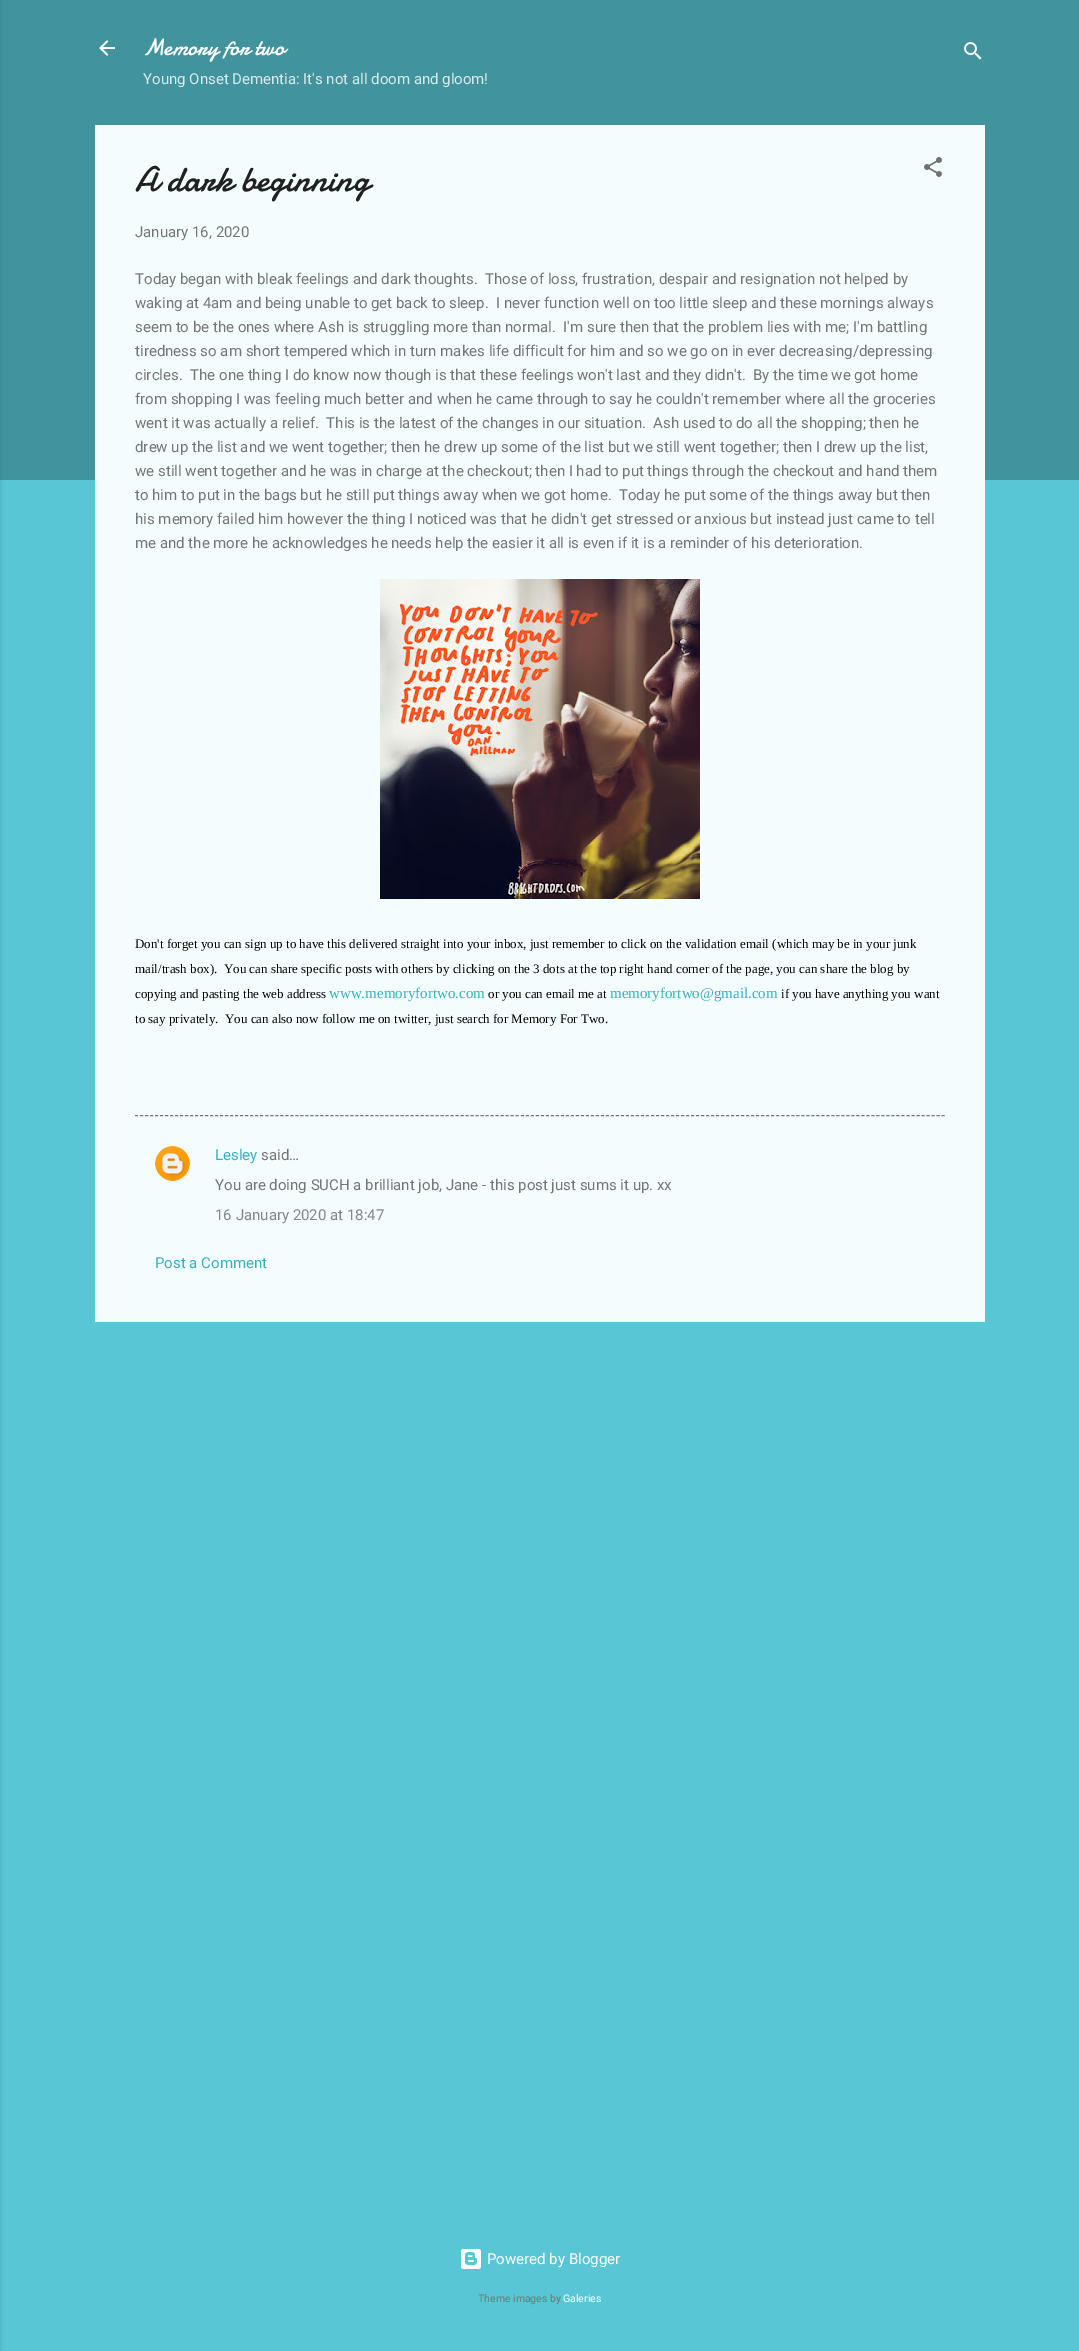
%!PS
<< /PageSize [1079 2351] /PageUsesTransparency true >> setpagedevice
/rgb { dup -16 bitshift 255 div exch dup -8 bitshift 255 and 255 div exch 255 and 255 div setrgbcolor } def
/font { [ exch dup neg 0 0 3 -1 roll 0 0 ] selectfont } def
/text { moveto show } def
/alpha { dup .setfillconstantalpha .setstrokeconstantalpha } def
/roundrect { 5 dict begin { /r /h /w /y /x } { exch def } forall
  x r add y moveto x w add y 2 copy h add r arct x w add y h add x 1 index r arct
  x y h add x y r arct x y 2 copy exch w add exch r arct closepath end } def
/shadow { 12 dict begin { /a /b /q /h /w /y /x } { exch def } forall gsave /was 0 def
  9 -2 -9 { dup b mul 4 div /e exch def 1 sub .425 mul 2.718 exch exp 1 add a .99 .min exch div /now exch def
    1 1 now sub 1 was sub div sub alpha /was now def
    w h .min e 2 mul add 0 gt { x e sub y e sub w e 2 mul add h e 2 mul add
      q e add b .6 mul add w h .min 2 div e add .min 0 .max roundrect fill } if } for grestore end } def
/picture { 5 dict begin { /h /w /y /x /name } { exch def } forall
  gsave x y translate w h scale
  w h 8 [w 0 0 h 0 0] name (r) file false 3 colorimage grestore end } def
0 .pushpdf14devicefilter
0 2351 translate 1 -1 scale
4 setmiterlimit
/s1 { /Damion-Regular 24 font 16#FFFFFF rgb } def
/s2 { /Roboto-Regular 15 font 16#D9EAEC rgb } def
/s3 { /Damion-Regular 36 font 16#212121 rgb } def
/s4 { /Roboto-Regular 15 font 16#757575 rgb } def
/s5 { /LiberationSerif-Regular 13 font 16#000000 rgb } def
/s6 { /LiberationSerif-Regular 15 font 16#37AFC0 rgb } def
/s7 { /Roboto-Regular 15 font 16#37AFC0 rgb } def
/s8 { /Roboto-Regular 15 font 16#828687 rgb } def
/s9 { /Roboto-Regular 15 font 16#FFFFFF rgb } def
/s10 { /Roboto-Regular 10.5 font 16#757575 rgb } def
/s11 { /Roboto-Regular 10.5 font 16#FFFFFF rgb } def
16#58C6D5 rgb
0 0 1079 2351 rectfill
16#41949E rgb
0 0 1079 480 rectfill
16#000000 rgb
-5 1 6 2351 0 1.5 0.1 shadow
(pic1.raw) 99 40 16 16 picture
s1
(Memory for two) 143 55 text
s2
(Young Onset Dementia: It's not all doom and gloom!) 143 84 text
(pic2.raw) 964 42 18 18 picture
16#F3FDFE rgb
95 125 890 1197 rectfill
s3
(A dark beginning) 135 191 text
(pic3.raw) 924 157 18 20 picture
s4
(January 16, 2020) 135 237 text
(Today began with bleak feelings and dark thoughts.  Those of loss, frustration, despair and resignation not helped by) 135 284 text
(waking at 4am and being unable to get back to sleep.  I never function well on too little sleep and these mornings always) 135 308 text
(seem to be the ones where Ash is struggling more than normal.  I'm sure then that the problem lies with me; I'm battling) 135 332 text
(tiredness so am short tempered which in turn makes life difficult for him and so we go on in ever decreasing/depressing) 135 356 text
(circles.  The one thing I do know now though is that these feelings won't last and they didn't.  By the time we got home) 135 380 text
(from shopping I was feeling much better and when he came through to say he couldn't remember where all the groceries) 135 404 text
(went it was actually a relief.  This is the latest of the changes in our situation.  Ash used to do all the shopping; then he) 135 428 text
(drew up the list and we went together; then he drew up some of the list but we still went together; then I drew up the list,) 135 452 text
(we still went together and he was in charge at the checkout; then I had to put things through the checkout and hand them) 135 476 text
(to him to put in the bags but he still put things away when we got home.  Today he put some of the things away but then) 135 500 text
(his memory failed him however the thing I noticed was that he didn't get stressed or anxious but instead just came to tell) 135 524 text
(me and the more he acknowledges he needs help the easier it all is even if it is a reminder of his deterioration.) 135 548 text
(pic4.raw) 380 579 320 320 picture
s5
(Don't forget you can sign up to have this delivered straight into your inbox, just remember to click on the validation email \(which may be in your junk) 135 948 text
(mail/trash box\).  You can share specific posts with others by clicking on the 3 dots at the top right hand corner of the page, you can share the blog by) 135 973 text
(copying and pasting the web address) 135 998 text
s6
(www.memoryfortwo.com) 329 998 text
s5
(or you can email me at) 488 998 text
s6
(memoryfortwo@gmail.com) 610 998 text
s5
(if you have anything you want) 781 998 text
(to say privately.  You can also now follow me on twitter, just search for Memory For Two.) 135 1023 text
16#707475 rgb
[3 2.01] 0 setdash
135 1115.5 moveto 945 1115.5 lineto stroke
(pic5.raw) 155 1146 35 35 picture
s7
(Lesley) 215 1160 text
s4
(said…) 261 1160 text
(You are doing SUCH a brilliant job, Jane - this post just sums it up. xx) 215 1190 text
s8
(16 January 2020 at 18:47) 215 1220 text
s7
(Post a Comment) 155 1268 text
(pic6.raw) 461 2249 20 20 picture
s9
(Powered by Blogger) 487 2264 text
s10
(Theme images by) 478 2302 text
s11
(Galeries) 563 2302 text
.poppdf14devicefilter showpage
